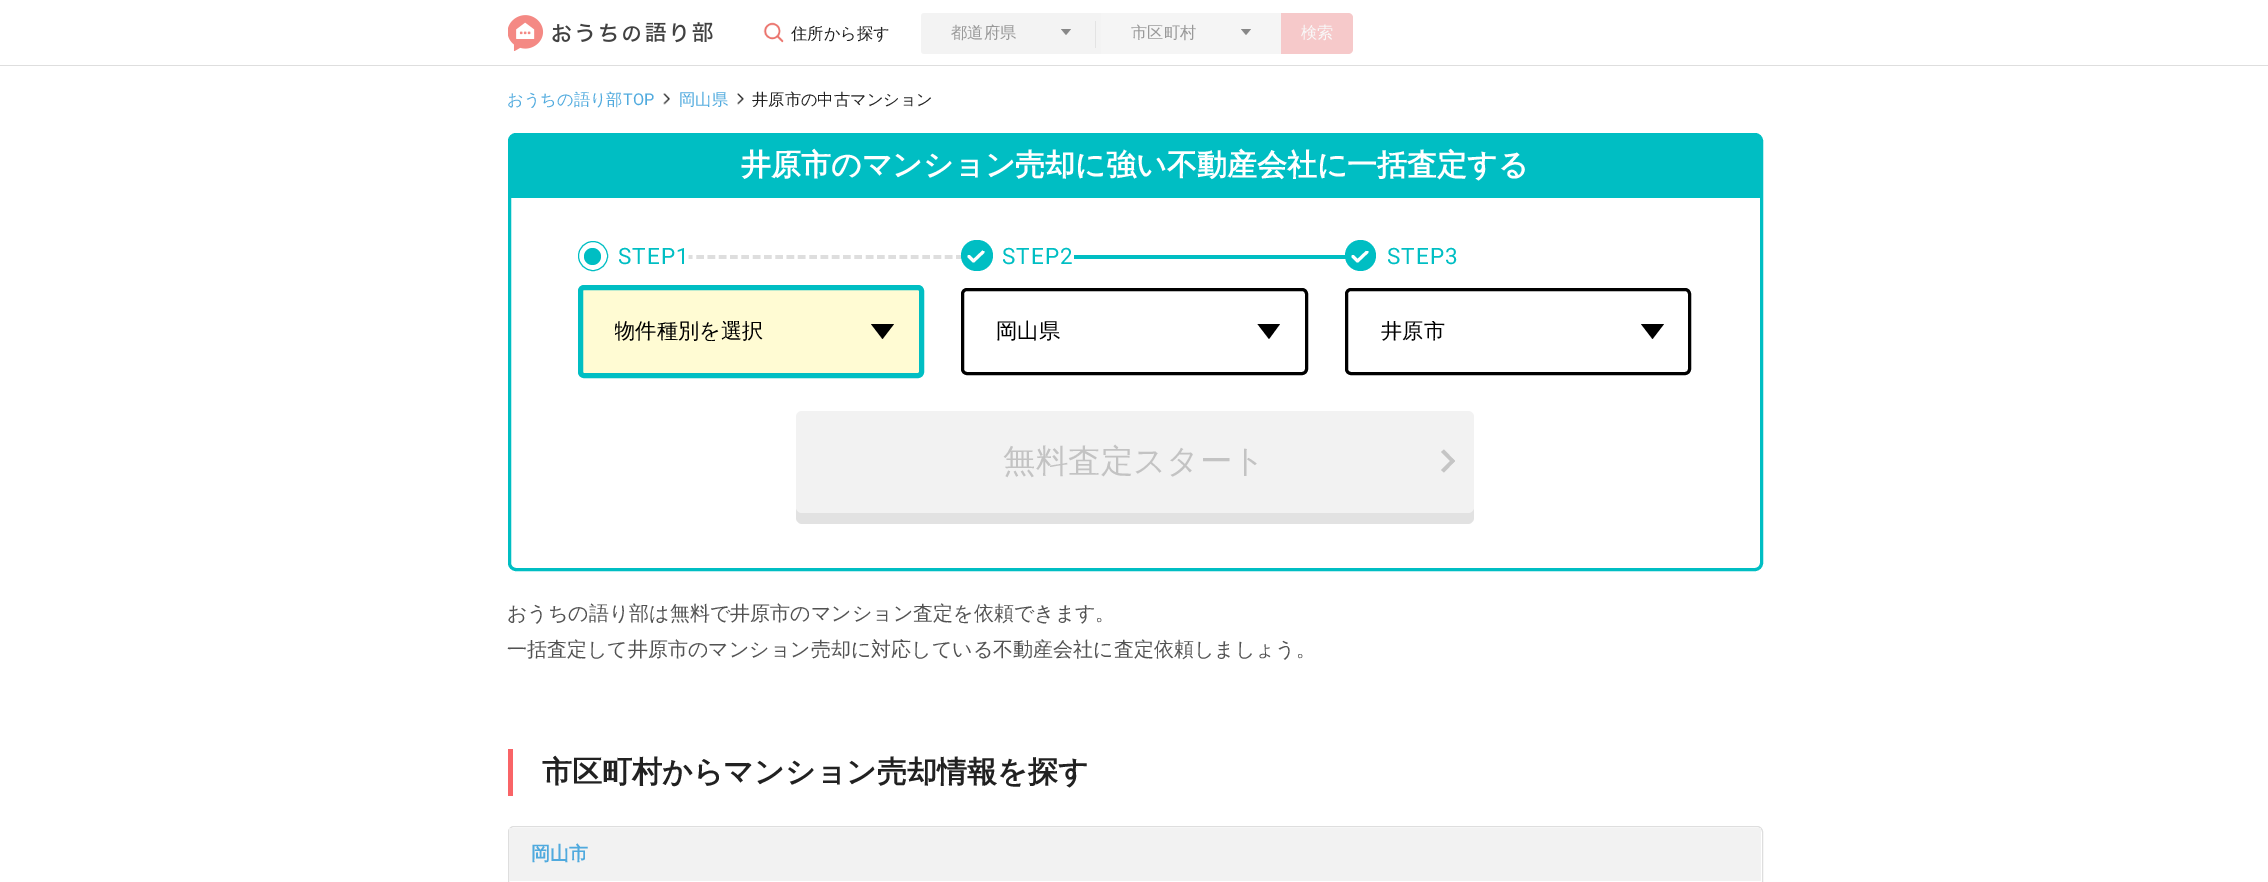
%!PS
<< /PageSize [2268 882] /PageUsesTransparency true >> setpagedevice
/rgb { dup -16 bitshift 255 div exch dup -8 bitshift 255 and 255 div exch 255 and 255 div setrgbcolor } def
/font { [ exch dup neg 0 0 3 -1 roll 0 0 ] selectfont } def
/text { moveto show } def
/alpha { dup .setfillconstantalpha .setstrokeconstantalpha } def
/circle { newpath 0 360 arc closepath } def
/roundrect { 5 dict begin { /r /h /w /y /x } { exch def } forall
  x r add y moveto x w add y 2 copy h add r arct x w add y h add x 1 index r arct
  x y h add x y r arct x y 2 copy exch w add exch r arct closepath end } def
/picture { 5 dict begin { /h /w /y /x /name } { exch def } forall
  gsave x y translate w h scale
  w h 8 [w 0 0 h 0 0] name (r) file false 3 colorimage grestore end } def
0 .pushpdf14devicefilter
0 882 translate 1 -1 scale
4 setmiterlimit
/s1 { /WenQuanYiZenHei-Medium 16.25 font 16#212121 rgb } def
/s2 { /WenQuanYiZenHei-Medium 16.25 font 16#999999 rgb } def
/s3 { /WenQuanYiZenHei-Medium 16.25 font 16#F8F8F8 rgb } def
/s4 { /WenQuanYiZenHei-Medium 16.25 font 16#50AADE rgb } def
/s5 { /Roboto-Regular 16.25 font 16#50AADE rgb } def
/s6 { /WenQuanYiZenHei-Bold 30 font 16#FFFFFF rgb } def
/s7 { /WenQuanYiZenHei-Medium 21.25 font 16#000000 rgb } def
/s8 { /WenQuanYiZenHei-Medium 32.5 font 16#C3C3C3 rgb } def
/s9 { /WenQuanYiZenHei-Medium 20 font 16#525252 rgb } def
/s10 { /WenQuanYiZenHei-Bold 30 font 16#212121 rgb } def
/s11 { /WenQuanYiZenHei-Bold 19 font 16#50AADE rgb } def
16#FFFFFF rgb
0 0 2268 882 rectfill
16#DEDEDE rgb
0 65 2268 1 rectfill
(pic1.raw) 508 15 205 36 picture
(pic2.raw) 763 22 21 21 picture
s1
(住所から探す) 791 39 text
16#F5F5F5 rgb
921 13 432 41 5 roundrect fill
0.8 alpha
16#F2F2F2 rgb
924 13 moveto 1101 13 lineto 1101 54 lineto 924 54 lineto 922.5 54 921 52.5 921 51 curveto 921 16 lineto 921 14.5 922.5 13 924 13 curveto closepath fill
1 alpha
s2
(都道府県) 951 38 text
16#888888 rgb
1061 29 moveto 1071 29 lineto 1066 35 lineto closepath fill
16#E3E3E3 rgb
1095 21 1 27 rectfill
s2
(市区町村) 1131 38 text
16#888888 rgb
1241 29 moveto 1251 29 lineto 1246 35 lineto closepath fill
0.3 alpha
16#F96467 rgb
1281 13 moveto 1348 13 lineto 1351 13 1353 15 1353 18 curveto 1353 49 lineto 1353 52 1351 54 1348 54 curveto 1281 54 lineto closepath fill
1 alpha
s3
(検索) 1301 38 text
s4
(おうちの語り部) 507 105 text
s5
(TOP) 623 105 text
(pic3.raw) 663 93 7 12 picture
s4
(岡山県) 679 105 text
(pic4.raw) 737 93 7 12 picture
s1
(井原市の中古マンション) 752 105 text
16#00BEC3 rgb
3 setlinewidth
509.5 134.5 1252 435 6.5 roundrect stroke
514 135 moveto 1756 135 lineto 1758 135 1760 137 1760 139 curveto 1760 198 lineto 510 198 lineto 510 139 lineto 510 137 512 135 514 135 curveto closepath fill
s6
(井原市のマンション売却に強い不動産会社に一括査定する) 741 175 text
16#00BEC3 rgb
1 setlinewidth
593 256 14.5 circle stroke
/Roboto-Regular 22.5 font
618 264 moveto 1 0 (STEP) ashow
16#DEDEDE rgb
3.8 setlinewidth
[7.5 3.8] 0 setdash
685 257 moveto 964 257 lineto stroke
16#FFFFFF rgb
682.5 246.5 moveto 686 246.5 688.5 251.5 688.5 257.5 curveto 688.5 263.5 686 268.5 682.5 268.5 curveto 679 268.5 676.5 263.5 676.5 257.5 curveto 676.5 251.5 679 246.5 682.5 246.5 curveto closepath fill
16#00BEC3 rgb
676 264 moveto 1 0 (1) ashow
592.5 256.5 8.5 circle fill
16#FFFBD3 rgb
580.5 287.5 341 88 3.5 roundrect gsave fill grestore
16#00BEC3 rgb
5 setlinewidth
[] 0 setdash
stroke
gsave
615 321 304 20 rectclip
s7
(物件種別を選択) 614 338 text
grestore
16#000000 rgb
871 324 moveto 894 324 lineto 882.5 339 lineto closepath fill
16#00BEC3 rgb
961 240 32 31 15.5 roundrect fill
1002 264 moveto 1 0 (STEP) ashow
1069 255 279 4 rectfill
16#FFFFFF rgb
1067 246.5 moveto 1071 246.5 1074 251.5 1074 257.5 curveto 1074 263.5 1071 268.5 1067 268.5 curveto 1063 268.5 1060 263.5 1060 257.5 curveto 1060 251.5 1063 246.5 1067 246.5 curveto closepath fill
16#00BEC3 rgb
1060 264 moveto 1 0 (2) ashow
gsave
977 250 moveto 983.5 250 989 253.5 989 258 curveto 989 262.5 983.5 266 977 266 curveto 970.5 266 965 262.5 965 258 curveto 965 253.5 970.5 250 977 250 curveto closepath clip newpath
16#FFFFFF rgb
3 setlinewidth
1 setlinecap
1 setlinejoin
969 256.5 moveto 973.5 261 lineto 983 252 lineto stroke
grestore
16#000000 rgb
3 setlinewidth
962.5 289.5 344 84 4.5 roundrect stroke
s7
(岡山県) 996 338 text
1257.5 324 moveto 1280 324 lineto 1269 339 lineto closepath fill
16#00BEC3 rgb
1360.5 255.5 15.5 circle fill
/Roboto-Regular 22.5 font
1387 264 moveto 1 0 (STEP3) ashow
gsave
1360.5 250 moveto 1367 250 1372.5 253.5 1372.5 258 curveto 1372.5 262.5 1367 266 1360.5 266 curveto 1354 266 1349 262.5 1349 258 curveto 1349 253.5 1354 250 1360.5 250 curveto closepath clip newpath
16#FFFFFF rgb
1 setlinecap
1 setlinejoin
1353 256.5 moveto 1357.5 261 lineto 1367 252 lineto stroke
grestore
16#000000 rgb
1346.5 289.5 343 84 4.5 roundrect stroke
gsave
1380 321 309 20 rectclip
s7
(井原市) 1381 338 text
grestore
1641 324 moveto 1664 324 lineto 1652.5 339 lineto closepath fill
16#E2E2E2 rgb
796 427 moveto 796 518 lineto 796 521 799 524 802 524 curveto 1468 524 lineto 1471 524 1474 521 1474 518 curveto 1474 427 lineto 1474 506 lineto 1474 510 1471 512 1468 512 curveto 802 512 lineto 799 512 796 510 796 506 curveto closepath fill
16#F2F2F2 rgb
796 411 678 102 6 roundrect fill
s8
(無料査定スタート) 1003 472 text
16#C5C5C5 rgb
1444 449.5 moveto 1455 461 lineto 1452.5 463.5 lineto 1441 452 lineto closepath fill
1452.5 458.5 moveto 1455 461 lineto 1444 472.5 lineto 1441 470 lineto closepath fill
s9
(おうちの語り部は無料で井原市のマンション査定を依頼できます。) 507 620 text
(一括査定して井原市のマンション売却に対応している不動産会社に査定依頼しましょう。) 507 656 text
16#F96467 rgb
508 749 5 47 rectfill
s10
(市区町村からマンション売却情報を探す) 542 782 text
16#DEDEDE rgb
1 setlinewidth
508.5 826.5 1254 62 5.5 roundrect stroke
16#F2F2F2 rgb
509 828 1252 53 rectfill
s11
(岡山市) 531 860 text
.poppdf14devicefilter showpage
